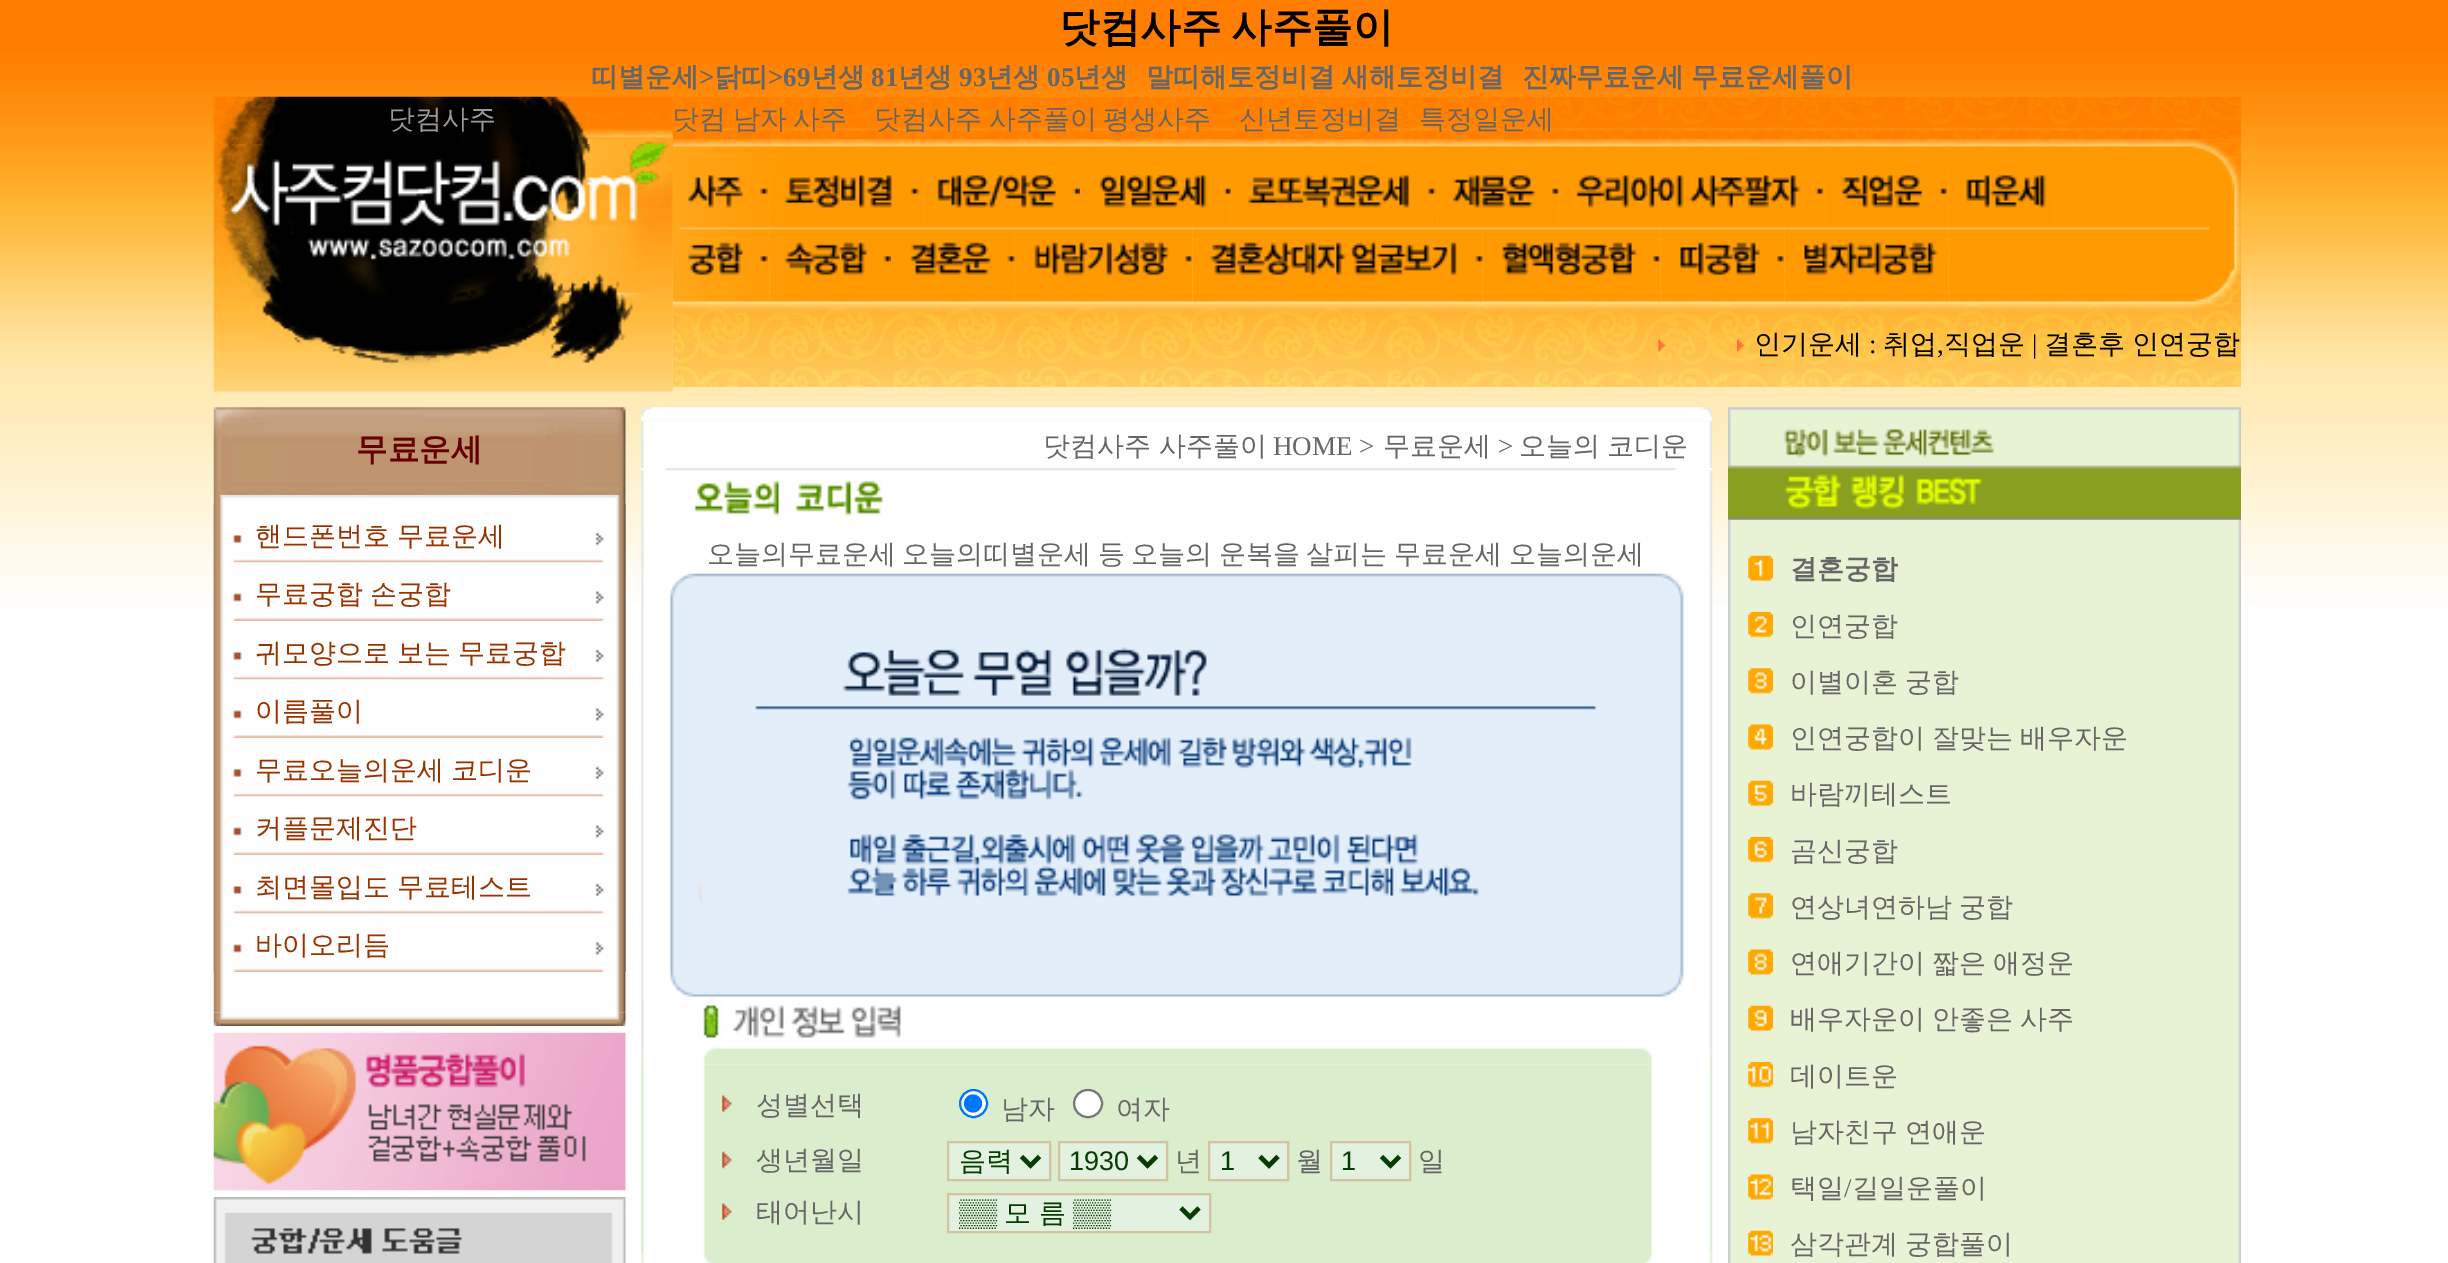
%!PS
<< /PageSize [2448 1263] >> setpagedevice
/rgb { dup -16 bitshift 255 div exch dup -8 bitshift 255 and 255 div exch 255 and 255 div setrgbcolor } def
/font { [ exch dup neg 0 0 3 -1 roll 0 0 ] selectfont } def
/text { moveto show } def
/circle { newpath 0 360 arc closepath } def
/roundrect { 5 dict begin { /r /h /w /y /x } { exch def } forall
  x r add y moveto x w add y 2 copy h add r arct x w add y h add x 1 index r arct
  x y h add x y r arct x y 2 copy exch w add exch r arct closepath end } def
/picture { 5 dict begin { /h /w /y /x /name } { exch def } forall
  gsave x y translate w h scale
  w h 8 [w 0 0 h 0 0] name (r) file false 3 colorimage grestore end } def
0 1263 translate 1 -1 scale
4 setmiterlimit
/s1 { /WenQuanYiZenHei-Bold 27 font 16#666666 rgb } def
/s2 { /LiberationSerif-Bold 27 font 16#666666 rgb } def
/s3 { /WenQuanYiZenHei-Medium 27 font 16#999999 rgb } def
/s4 { /WenQuanYiZenHei-Medium 27 font 16#666666 rgb } def
/s5 { /WenQuanYiZenHei-Medium 27 font 16#000000 rgb } def
/s6 { /LiberationSerif-Regular 27 font 16#000000 rgb } def
/s7 { /WenQuanYiZenHei-Bold 31.5 font 16#660000 rgb } def
/s8 { /WenQuanYiZenHei-Medium 27 font 16#993300 rgb } def
/s9 { /LiberationSerif-Regular 27 font 16#666666 rgb } def
/s10 { /WenQuanYiZenHei-Medium 27 font 16#053C00 rgb } def
/s11 { /LiberationSans-Regular 27 font 16#053C00 rgb } def
16#FFFFFF rgb
0 0 2448 1263 rectfill
(pic1.raw) 0 0 2448 606 picture
/WenQuanYiZenHei-Bold 40.5 font
16#000000 rgb
1059 41 moveto -2 0 32 (닷컴사주 사주풀이) widthshow
s1
(띠별운세) 591 86 text
s2
(>) 699 86 text
s1
(닭띠) 714 86 text
s2
(>69) 768 86 text
s1
(년생) 811 86 text
s2
(81) 871 86 text
s1
(년생) 898 86 text
s2
(93) 959 86 text
s1
(년생) 986 86 text
s2
(05) 1047 86 text
s1
(년생) 1074 86 text
1146 86 moveto -1.5 0 32 (말띠해토정비결 새해토정비결) widthshow
1522 86 moveto -1.5 0 32 (진짜무료운세 무료운세풀이) widthshow
(pic2.raw) 213 96 460 48 picture
s3
(닷컴사주) 388 128 text
(pic24.raw) 672 303 1569 84 picture
(pic3.raw) 213 144 460 248 picture
(pic4.raw) 672 97 1569 43 picture
16#666666 rgb
672 128 moveto -1.5 0 32 (닷컴 남자 사주) widthshow
874 128 moveto -1.5 0 32 (닷컴사주 사주풀이 평생사주) widthshow
(신년토정비결) 1239 128 text
(특정일운세) 1419 128 text
(pic5.raw) 672 139 98 86 picture
(pic6.raw) 769 139 156 86 picture
(pic7.raw) 924 139 156 86 picture
(pic8.raw) 1080 139 151 86 picture
(pic9.raw) 1230 139 208 86 picture
(pic10.raw) 1437 139 123 86 picture
(pic11.raw) 1559 139 266 86 picture
(pic12.raw) 1824 139 125 86 picture
(pic13.raw) 1948 139 107 86 picture
(pic14.raw) 2054 139 187 86 picture
(pic15.raw) 672 225 98 79 picture
(pic16.raw) 769 225 122 79 picture
(pic17.raw) 891 225 124 79 picture
(pic18.raw) 1014 225 179 79 picture
(pic19.raw) 1192 225 291 79 picture
(pic20.raw) 1482 225 179 79 picture
(pic21.raw) 1660 225 125 79 picture
(pic22.raw) 1784 225 165 79 picture
(pic23.raw) 1948 225 293 79 picture
(pic25.raw) 1658 339 8 13 picture
(pic26.raw) 1737 339 8 13 picture
s5
(인기운세) 1754 353 text
s6
(:) 1869 353 text
s5
(취업) 1883 353 text
s6
(,) 1937 353 text
s5
(직업운) 1944 353 text
s6
(|) 2032 353 text
s5
(결혼후) 2044 353 text
(인연궁합) 2132 353 text
(pic27.raw) 213 407 413 88 picture
s7
(무료운세) 356 460 text
(pic28.raw) 213 495 413 9 picture
(pic29.raw) 213 504 413 509 picture
(pic30.raw) 213 504 413 59 picture
s8
(핸드폰번호) 255 545 text
(무료운세) 397 545 text
(pic31.raw) 213 562 413 59 picture
(무료궁합) 255 603 text
(손궁합) 370 603 text
(pic32.raw) 213 621 413 59 picture
(귀모양으로) 255 662 text
397 662 moveto -1.5 0 32 (보는 무료궁합) widthshow
(pic33.raw) 213 679 413 59 picture
(이름풀이) 255 720 text
(pic32.raw) 213 738 413 59 picture
(무료오늘의운세) 255 779 text
(코디운) 451 779 text
(pic33.raw) 213 796 413 59 picture
(커플문제진단) 255 837 text
(pic32.raw) 213 855 413 59 picture
(최면몰입도) 255 896 text
(무료테스트) 397 896 text
(pic33.raw) 213 913 413 59 picture
(바이오리듬) 255 954 text
(pic34.raw) 213 1012 413 14 picture
(pic35.raw) 213 1032 413 159 picture
(pic36.raw) 213 1197 413 16 picture
(pic37.raw) 213 1212 413 51 picture
(pic39.raw) 641 420 1072 48 picture
(pic38.raw) 641 407 1072 14 picture
s4
(닷컴사주 사주풀이) 1043 455 text
s9
(HOME) 1273 455 text
(>) 1359 455 text
s4
(무료운세) 1383 455 text
s9
(>) 1498 455 text
/WenQuanYiZenHei-Medium 27 font
1519 455 moveto -1 0 32 (오늘의 코디운) widthshow
(pic41.raw) 641 470 1072 55 picture
(pic40.raw) 641 468 1072 3 picture
(pic42.raw) 694 481 189 35 picture
(pic43.raw) 641 524 1072 50 picture
(오늘의무료운세) 707 563 text
902 563 moveto -1.5 0 32 (오늘의띠별운세 등 오늘의 운복을 살피는 무료운세 오늘의운세) widthshow
(pic44.raw) 641 574 1072 423 picture
(pic45.raw) 670 573 1014 424 picture
(pic46.raw) 641 996 1072 53 picture
(pic47.raw) 641 1048 1072 16 picture
(pic48.raw) 641 1064 1072 187 picture
(pic49.raw) 722 1095 10 18 picture
(성별선택) 756 1114 text
16#FFFFFF rgb
973.5 1103.5 13.5 circle gsave fill grestore
16#0075FF rgb
2 setlinewidth
stroke
973 1103.5 9 circle fill
s4
(남자) 1001 1118 text
16#FFFFFF rgb
1074 1090 28 27 13.5 roundrect gsave fill grestore
16#767676 rgb
stroke
s4
(여자) 1116 1118 text
(pic50.raw) 722 1151 10 18 picture
(생년월일) 756 1169 text
16#E3F1E0 rgb
948 1142 moveto 1050 1142 lineto 1050 1180 lineto 948 1180 lineto closepath gsave fill grestore
16#D5C29F rgb
stroke
16#053C00 rgb
4.5 setlinewidth
1021.5 1156.5 moveto 1030.5 1165.5 lineto 1039.5 1156.5 lineto stroke
(음력) 959 1170 text
16#E3F1E0 rgb
1059 1142 moveto 1167 1142 lineto 1167 1180 lineto 1059 1180 lineto closepath gsave fill grestore
16#D5C29F rgb
2 setlinewidth
stroke
16#053C00 rgb
4.5 setlinewidth
1138.5 1156.5 moveto 1147.5 1165.5 lineto 1156.5 1156.5 lineto stroke
s11
(1930) 1069 1170 text
s4
(년) 1175 1170 text
16#E3F1E0 rgb
1209 1142 moveto 1288 1142 lineto 1288 1180 lineto 1209 1180 lineto closepath gsave fill grestore
16#D5C29F rgb
2 setlinewidth
stroke
16#053C00 rgb
4.5 setlinewidth
1260 1156.5 moveto 1269 1165.5 lineto 1278 1156.5 lineto stroke
s11
(1) 1220 1170 text
s4
(월) 1296 1170 text
16#E3F1E0 rgb
1331 1142 moveto 1410 1142 lineto 1410 1180 lineto 1331 1180 lineto closepath gsave fill grestore
16#D5C29F rgb
2 setlinewidth
stroke
16#053C00 rgb
4.5 setlinewidth
1381.5 1156.5 moveto 1390.5 1165.5 lineto 1399.5 1156.5 lineto stroke
s11
(1) 1341 1170 text
s4
(일) 1418 1170 text
(pic49.raw) 722 1203 10 18 picture
(태어난시) 756 1221 text
16#E3F1E0 rgb
948 1194 moveto 1210 1194 lineto 1210 1232 lineto 948 1232 lineto closepath gsave fill grestore
16#D5C29F rgb
2 setlinewidth
stroke
16#053C00 rgb
4.5 setlinewidth
1181 1208 moveto 1190 1217 lineto 1199 1208 lineto stroke
gsave
959 1195 213 36 rectclip
s11
(▒▒) 959 1222 text
grestore
(모 름) 1004 1222 text
s11
(▒▒) 1073 1222 text
(pic51.raw) 641 1251 1072 12 picture
(pic53.raw) 1728 420 513 843 picture
(pic52.raw) 1728 407 513 14 picture
(pic54.raw) 1728 421 513 99 picture
16#E7F3D4 rgb
1731 520 507 743 rectfill
(pic55.raw) 1748 555 25 27 picture
s1
(결혼궁합) 1790 578 text
(pic56.raw) 1748 612 25 26 picture
s4
(인연궁합) 1790 635 text
(pic57.raw) 1748 668 25 26 picture
1790 691 moveto -1.5 0 32 (이별이혼 궁합) widthshow
(pic58.raw) 1748 724 25 26 picture
(인연궁합이) 1790 747 text
1932 747 moveto -1.5 0 32 (잘맞는 배우자운) widthshow
(pic59.raw) 1748 780 25 27 picture
(바람끼테스트) 1790 803 text
(pic60.raw) 1748 837 25 26 picture
(곰신궁합) 1790 860 text
(pic61.raw) 1748 893 25 26 picture
(연상녀연하남) 1790 916 text
(궁합) 1959 916 text
(pic62.raw) 1748 949 25 26 picture
1790 972 moveto -1.5 0 32 (연애기간이 짧은) widthshow
(애정운) 1993 972 text
(pic63.raw) 1748 1005 25 27 picture
1790 1028 moveto -1.5 0 32 (배우자운이 안좋은) widthshow
(사주) 2020 1028 text
(pic64.raw) 1748 1062 25 26 picture
(데이트운) 1790 1085 text
(pic65.raw) 1748 1118 25 26 picture
1790 1141 moveto -1.5 0 32 (남자친구 연애운) widthshow
(pic66.raw) 1748 1174 25 26 picture
(택일) 1790 1197 text
s9
(/) 1844 1197 text
s4
(길일운풀이) 1852 1197 text
(pic67.raw) 1748 1230 25 27 picture
1790 1253 moveto -1.5 0 32 (삼각관계 궁합풀이) widthshow
showpage
